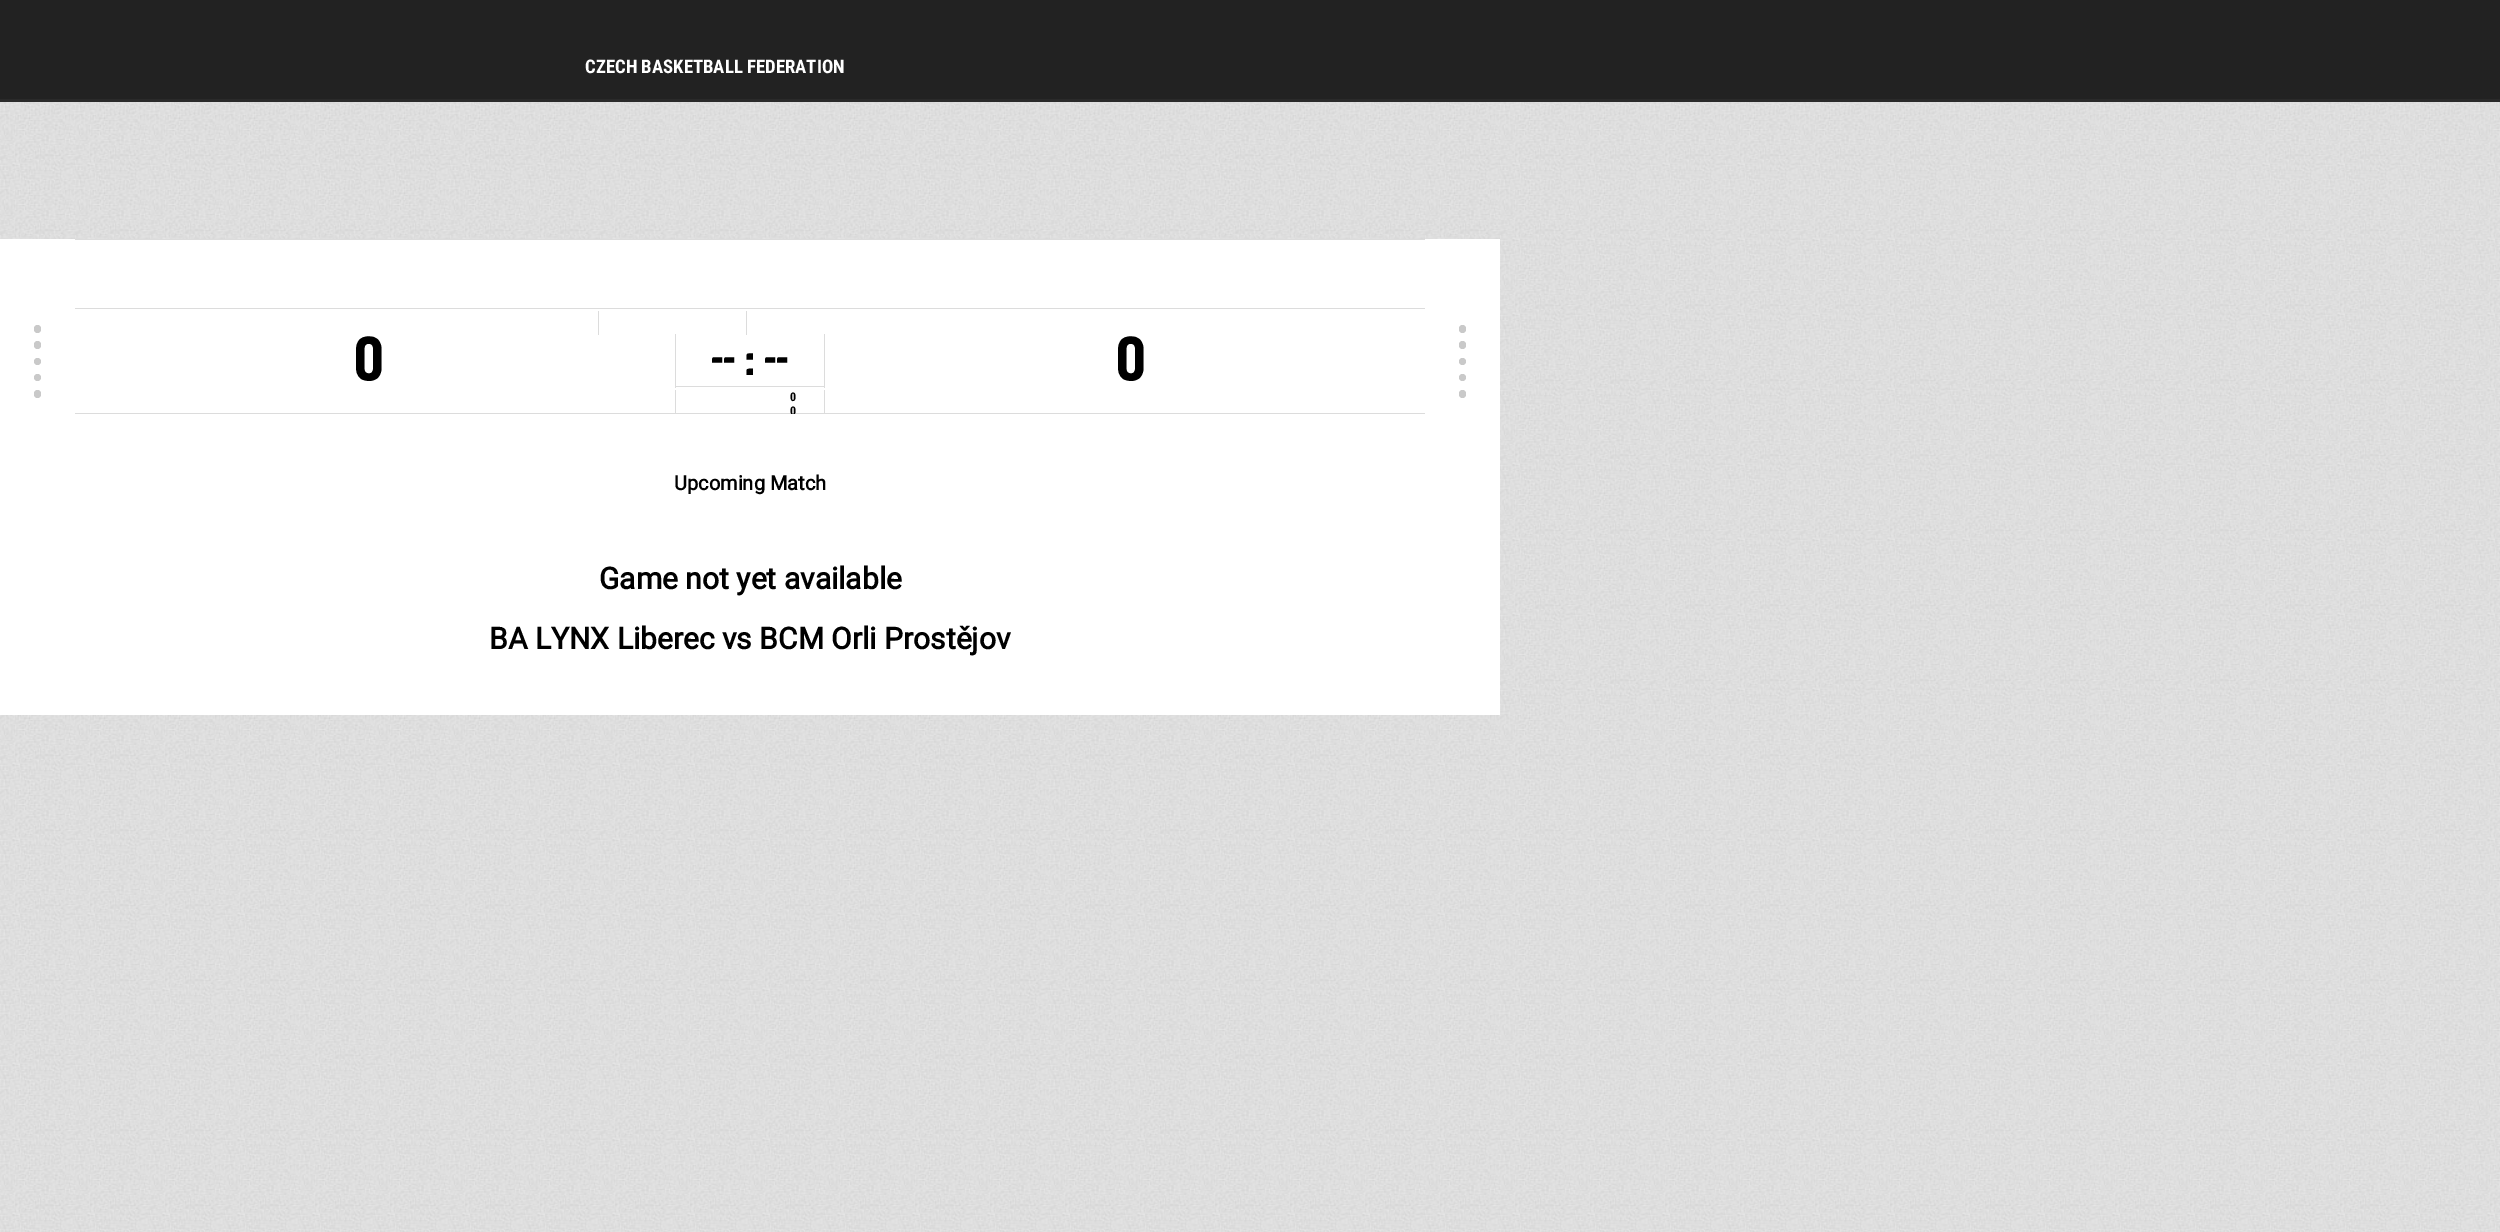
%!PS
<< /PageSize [2500 1232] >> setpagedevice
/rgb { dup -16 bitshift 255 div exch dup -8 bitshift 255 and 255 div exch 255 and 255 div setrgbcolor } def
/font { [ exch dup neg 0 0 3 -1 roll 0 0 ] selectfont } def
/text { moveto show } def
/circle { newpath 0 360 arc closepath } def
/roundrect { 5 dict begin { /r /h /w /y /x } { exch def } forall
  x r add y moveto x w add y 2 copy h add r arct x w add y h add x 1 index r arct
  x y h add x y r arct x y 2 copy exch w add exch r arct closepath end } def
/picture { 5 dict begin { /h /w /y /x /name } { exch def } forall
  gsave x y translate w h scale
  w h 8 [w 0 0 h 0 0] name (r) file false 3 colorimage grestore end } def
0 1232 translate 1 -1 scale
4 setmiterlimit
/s1 { /RobotoCondensed-Bold 18.75 font 16#FFFFFF rgb } def
/s2 { /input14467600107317-Regular 60 font 16#000000 rgb } def
/s3 { /input14467600107317-Regular 42 font 16#000000 rgb } def
/s4 { /RobotoCondensed-Bold 12 font 16#000000 rgb } def
/s5 { /Roboto-Bold 20 font 16#000000 rgb } def
/s6 { /Roboto-Bold 30 font 16#000000 rgb } def
16#FFFFFF rgb
0 0 2500 1232 rectfill
(pic1.raw) 0 102 2500 1130 picture
16#222222 rgb
0 0 2500 99 rectfill
16#2A2A2A rgb
0 99 2500 3 rectfill
s1
(CZECH BASKETBALL FEDERATION) 585 73 text
0 239 1500 476 rectfill
16#DCDCDC rgb
75 239 1350 1 rectfill
16#C9C9C9 rgb
34 325 7 8 3.5 roundrect fill
34 341 7 8 3.5 roundrect fill
37.5 361.5 3.5 circle fill
37.5 377.5 3.5 circle fill
34 390 7 8 3.5 roundrect fill
s2
(0) 354 380 text
16#DCDCDC rgb
75 308 1350 1 rectfill
75 413 1350 1 rectfill
746 311 1 24 rectfill
598 311 1 24 rectfill
824 334 1 54 rectfill
675 386 150 1 rectfill
675 334 1 54 rectfill
s3
(-- : --) 711 375 text
16#DCDCDC rgb
824 390 1 24 rectfill
675 390 1 24 rectfill
s4
(0) 790 401 text
gsave
676 390 148 24 rectclip
(0) 790 415 text
grestore
s2
(0) 1116 380 text
16#C9C9C9 rgb
1459 325 7 8 3.5 roundrect fill
1459 341 7 8 3.5 roundrect fill
1462.5 361.5 3.5 circle fill
1462.5 377.5 3.5 circle fill
1459 390 7 8 3.5 roundrect fill
s5
(Upcoming Match) 674 490 text
s6
(Game not yet available) 599 589 text
(BA LYNX Liberec vs BCM Orli Prostějov) 489 649 text
showpage
